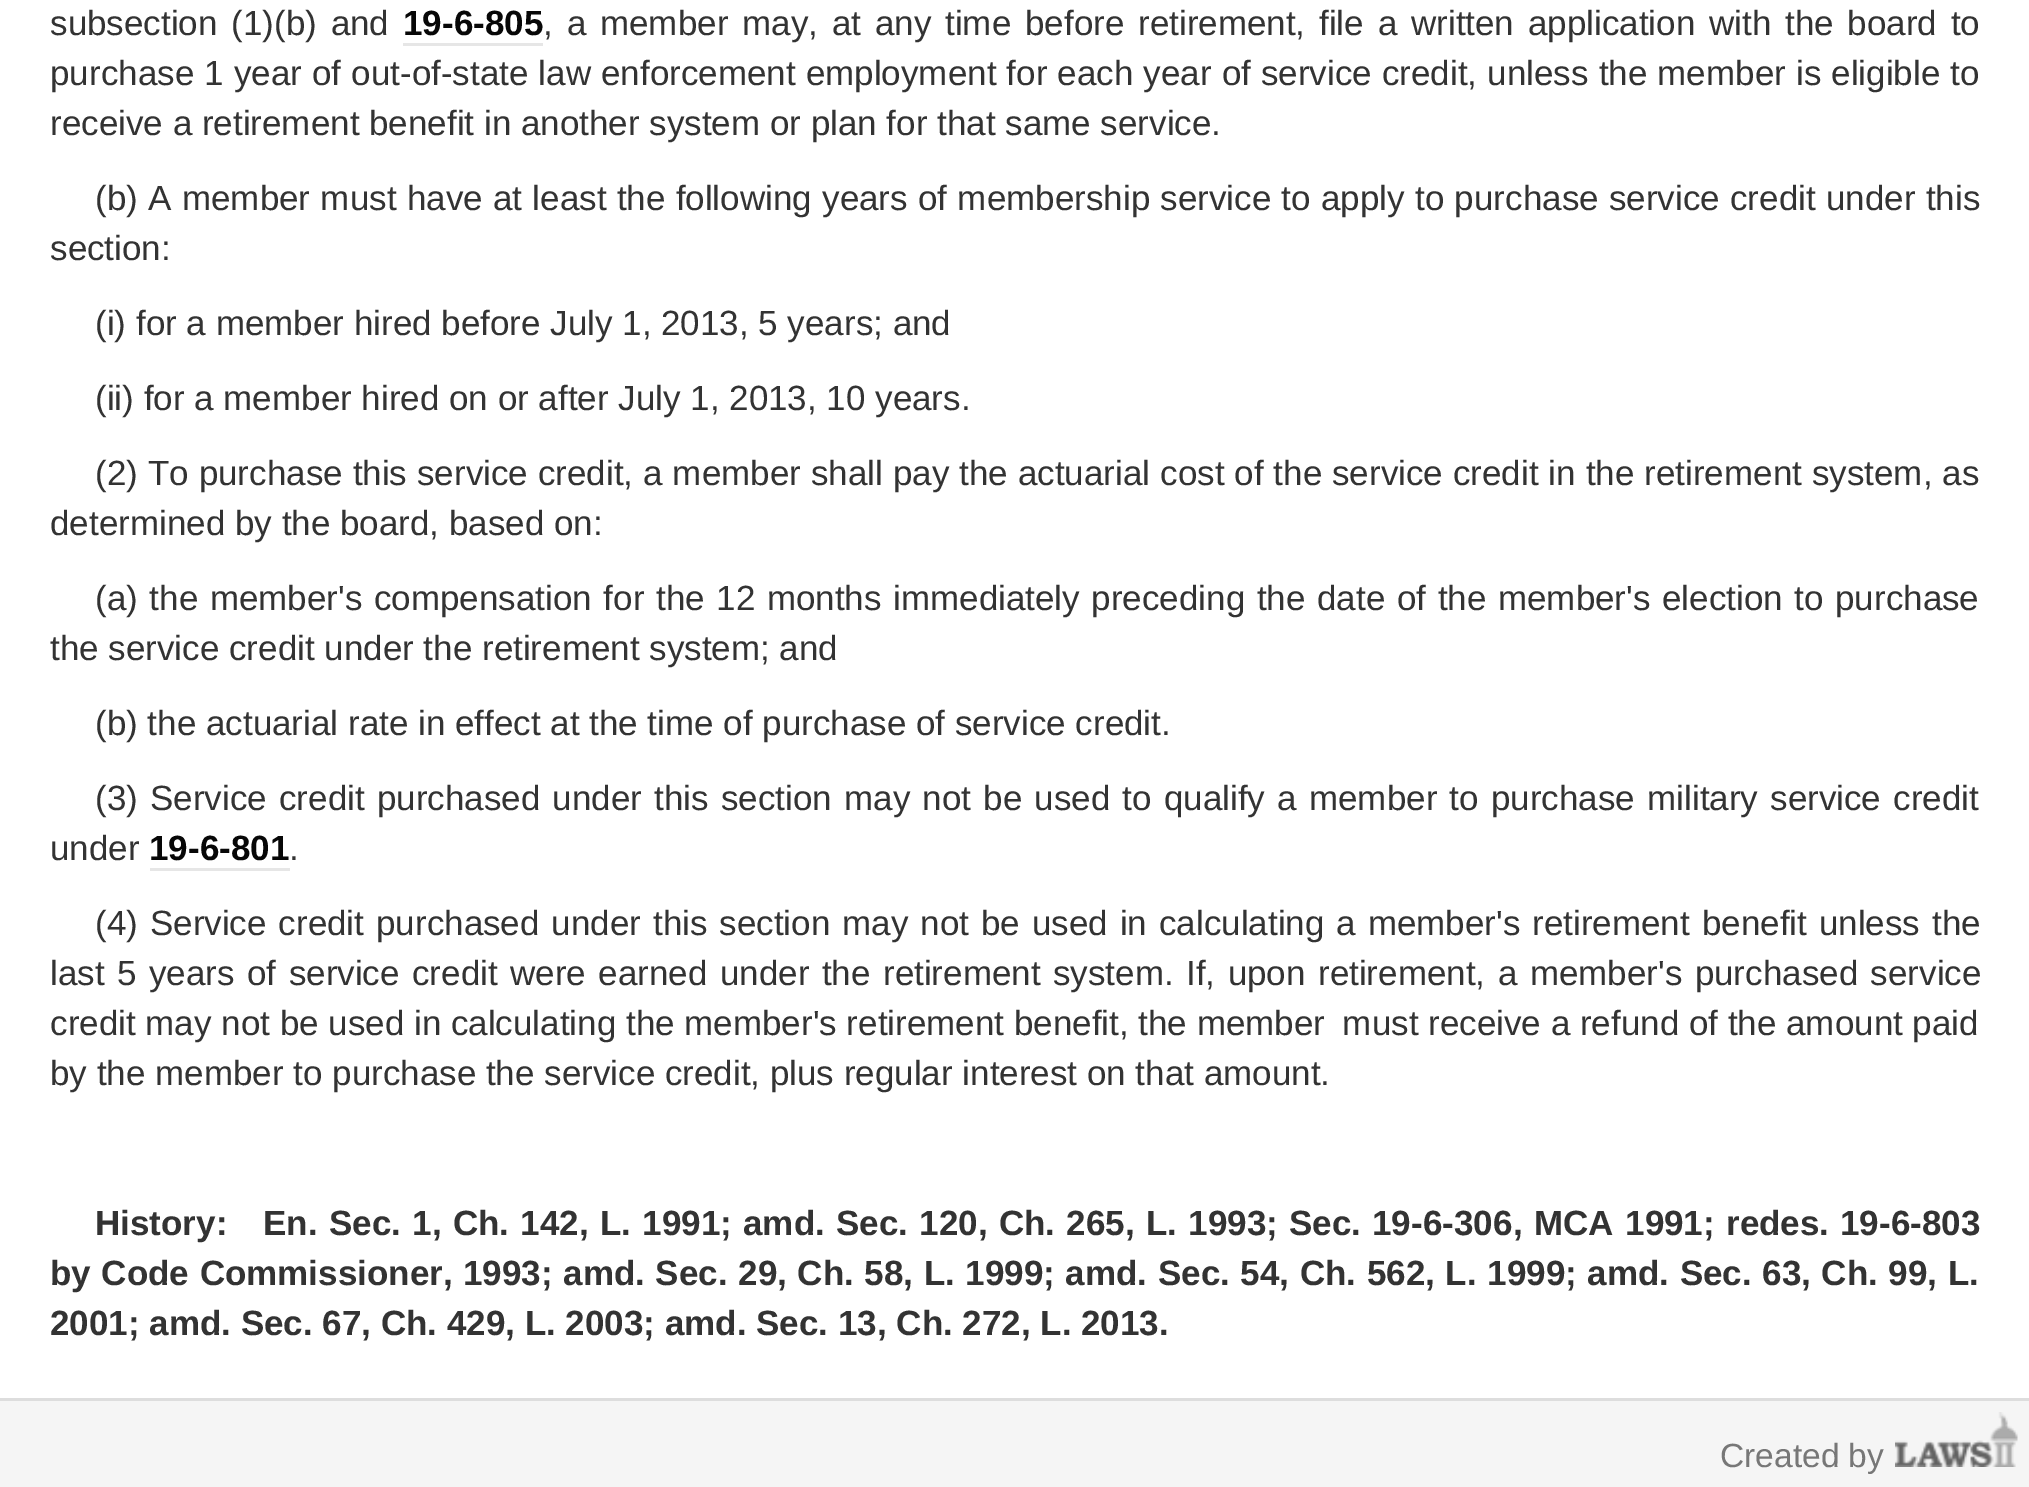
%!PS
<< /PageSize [2029 1487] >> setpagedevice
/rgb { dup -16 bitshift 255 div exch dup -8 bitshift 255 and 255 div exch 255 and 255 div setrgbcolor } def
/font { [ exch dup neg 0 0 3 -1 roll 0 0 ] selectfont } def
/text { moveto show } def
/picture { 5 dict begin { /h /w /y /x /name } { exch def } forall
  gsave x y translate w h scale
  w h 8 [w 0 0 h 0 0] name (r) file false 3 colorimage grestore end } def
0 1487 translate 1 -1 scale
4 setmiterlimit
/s1 { /LiberationSans-Bold 35 font 16#070707 rgb } def
/s2 { /LiberationSans-Regular 35 font 16#333333 rgb } def
/s3 { /LiberationSans-Bold 35 font 16#333333 rgb } def
/s4 { /LiberationSans-Regular 33.5 font 16#777777 rgb } def
16#F5F5F5 rgb
0 0 2029 1487 rectfill
16#FFFFFF rgb
0 0 2029 1398 rectfill
/LiberationSans-Regular 35 font
16#333333 rgb
50 35 moveto 4.1 0 32 (subsection \(1\)\(b\) and) widthshow
s1
(19-6-805) 403 35 text
16#E6E6E6 rgb
403 43 140 3 rectfill
/LiberationSans-Regular 35 font
16#333333 rgb
543 35 moveto 4.1 0 32 (, a member may, at any time before retirement, file a written application with the board to) widthshow
50 85 moveto 0.4 0 32 (purchase 1 year of out-of-state law enforcement employment for each year of service credit, unless the member is eligible to) widthshow
(receive a retirement benefit in another system or plan for that same service.) 50 135 text
95 210 moveto 0.6 0 32 (\(b\) A member must have at least the following years of membership service to apply to purchase service credit under this) widthshow
(section:) 50 260 text
(\(i\) for a member hired before July 1, 2013, 5 years; and) 95 335 text
(\(ii\) for a member hired on or after July 1, 2013, 10 years.) 95 410 text
95 485 moveto 0.25 0 32 (\(2\) To purchase this service credit, a member shall pay the actuarial cost of the service credit in the retirement system, as) widthshow
(determined by the board, based on:) 50 535 text
95 610 moveto 1.9 0 32 (\(a\) the member's compensation for the 12 months immediately preceding the date of the member's election to purchase) widthshow
(the service credit under the retirement system; and) 50 660 text
(\(b\) the actuarial rate in effect at the time of purchase of service credit.) 95 735 text
95 810 moveto 2.5 0 32 (\(3\) Service credit purchased under this section may not be used to qualify a member to purchase military service credit) widthshow
(under) 50 860 text
s1
(19-6-801) 149 860 text
16#E6E6E6 rgb
150 868 140 3 rectfill
s2
(.) 289 860 text
95 935 moveto 2.25 0 32 (\(4\) Service credit purchased under this section may not be used in calculating a member's retirement benefit unless the) widthshow
50 985 moveto 2.75 0 32 (last 5 years of service credit were earned under the retirement system. If, upon retirement, a member's purchased service) widthshow
(credit may not be used in calculating the member's retirement benefit, the member must receive a refund of the amount paid) 50 1035 text
(by the member to purchase the service credit, plus regular interest on that amount.) 50 1085 text
s3
(History:) 95 1235 text
263 1235 moveto 1.6 0 32 (En. Sec. 1, Ch. 142, L. 1991; amd. Sec. 120, Ch. 265, L. 1993; Sec.) widthshow
(19-6-306) 1372 1235 text
1513 1235 moveto 1.6 0 32 (, MCA 1991; redes.) widthshow
(19-6-803) 1840 1235 text
50 1285 moveto 0.9 0 32 (by Code Commissioner, 1993; amd. Sec. 29, Ch. 58, L. 1999; amd. Sec. 54, Ch. 562, L. 1999; amd. Sec. 63, Ch. 99, L.) widthshow
(2001; amd. Sec. 67, Ch. 429, L. 2003; amd. Sec. 13, Ch. 272, L. 2013.) 50 1335 text
16#DDDDDD rgb
0 1398 2029 3 rectfill
s4
(Created by) 1720 1467 text
(pic1.raw) 1895 1412 123 55 picture
showpage
